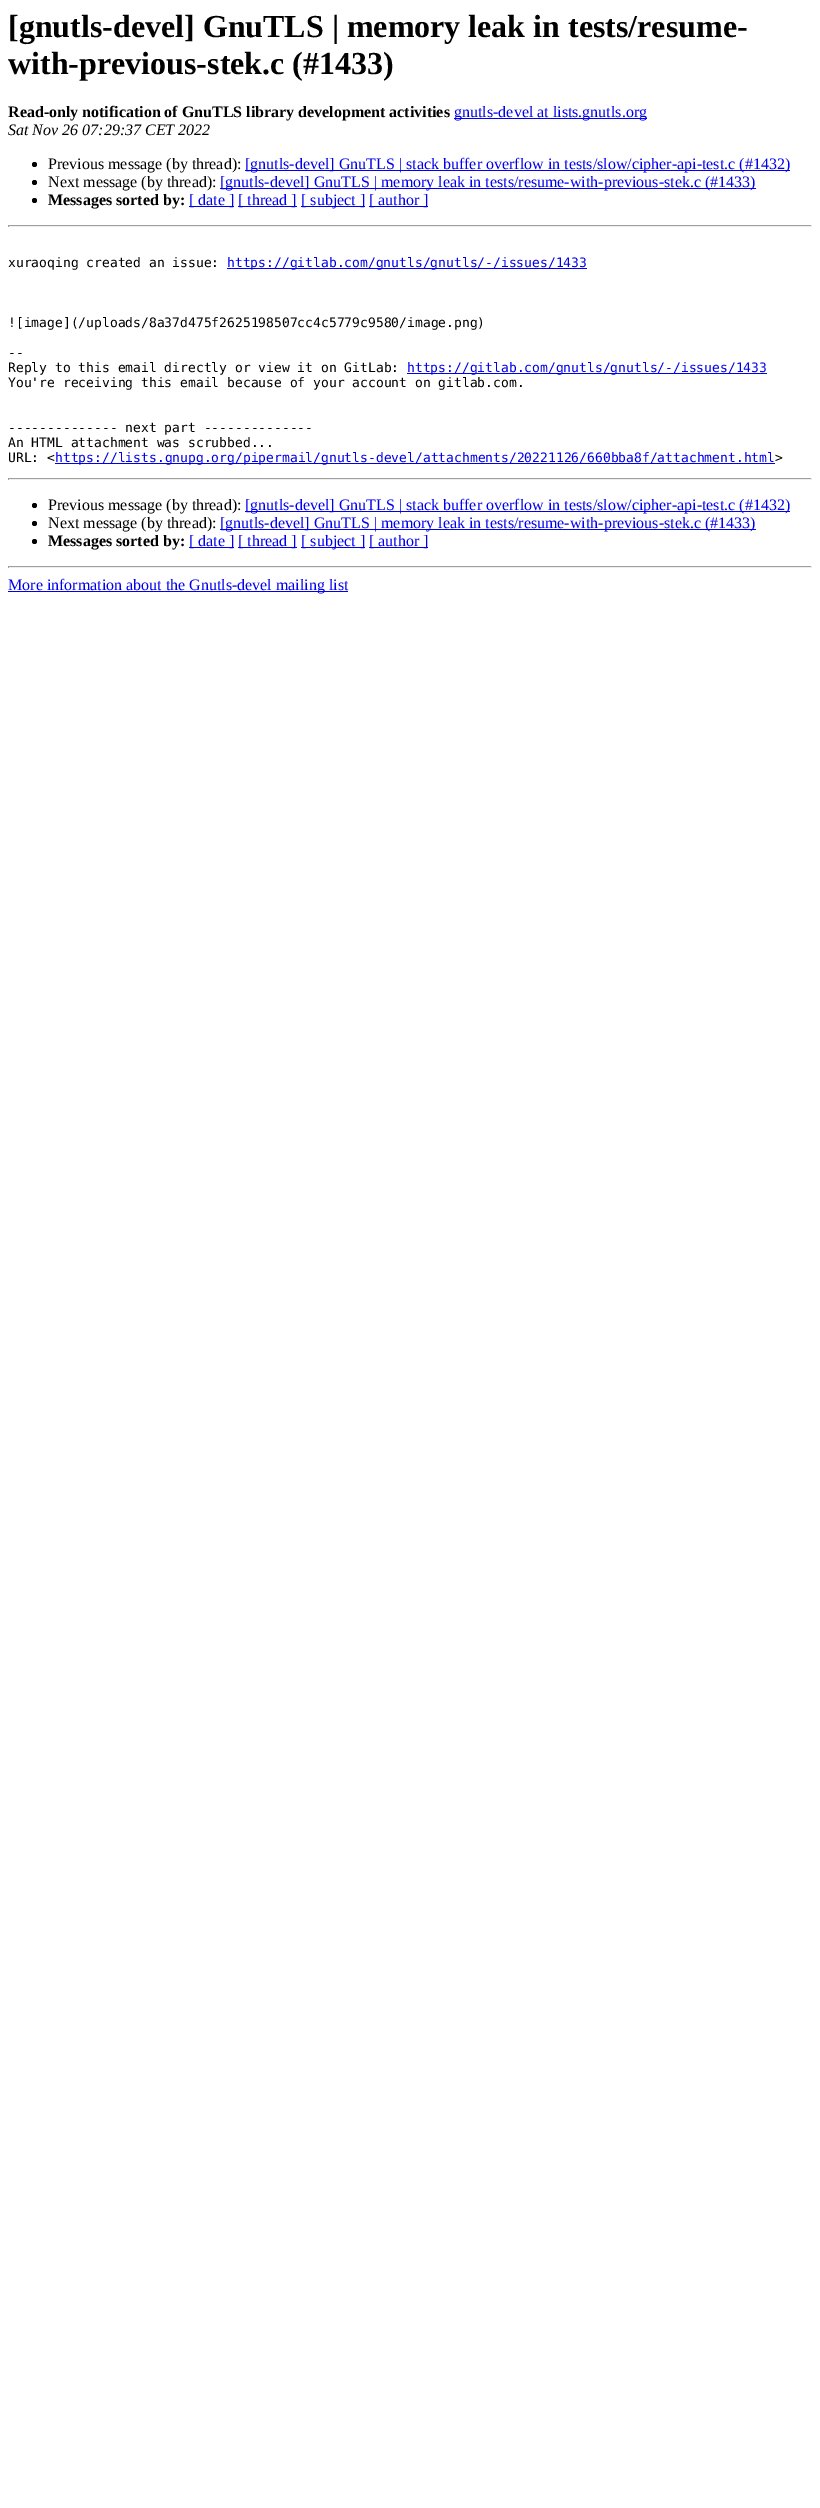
%!PS
<< /PageSize [820 2508] >> setpagedevice
/rgb { dup -16 bitshift 255 div exch dup -8 bitshift 255 and 255 div exch 255 and 255 div setrgbcolor } def
/font { [ exch dup neg 0 0 3 -1 roll 0 0 ] selectfont } def
/text { moveto show } def
/circle { newpath 0 360 arc closepath } def
0 2508 translate 1 -1 scale
4 setmiterlimit
/s1 { /LiberationSerif-Bold 32 font 16#000000 rgb } def
/s2 { /LiberationSerif-Bold 16 font 16#000000 rgb } def
/s3 { /LiberationSerif-Regular 16 font 16#0000EE rgb } def
/s4 { /LiberationSerif-Italic 16 font 16#000000 rgb } def
/s5 { /LiberationSerif-Regular 16 font 16#000000 rgb } def
/s6 { /DejaVuSansMono-Regular 13 font 16#000000 rgb } def
/s7 { /DejaVuSansMono-Regular 13 font 16#0000EE rgb } def
16#FFFFFF rgb
0 0 820 2508 rectfill
s1
([gnutls-devel] GnuTLS | memory leak in tests/resume-) 8 37 text
(with-previous-stek.c \(#1433\)) 8 74 text
s2
(Read-only notification of GnuTLS library development activities) 8 117 text
16#0000EE rgb
454 118 193 1 rectfill
s3
(gnutls-devel at lists.gnutls.org) 454 117 text
s4
(Sat Nov 26 07:29:37 CET 2022) 8 135 text
34.5 164.5 2.5 circle fill
s5
(Previous message \(by thread\):) 48 169 text
16#0000EE rgb
245 170 545 1 rectfill
([gnutls-devel] GnuTLS | stack buffer overflow in tests/slow/cipher-api-test.c \(#1432\)) 245 169 text
16#000000 rgb
34.5 182.5 2.5 circle fill
(Next message \(by thread\):) 48 187 text
16#0000EE rgb
220 188 536 1 rectfill
([gnutls-devel] GnuTLS | memory leak in tests/resume-with-previous-stek.c \(#1433\)) 220 187 text
16#000000 rgb
34.5 200.5 2.5 circle fill
s2
(Messages sorted by:) 48 205 text
16#0000EE rgb
189 206 45 1 rectfill
s3
([ date ]) 189 205 text
238 206 59 1 rectfill
([ thread ]) 238 205 text
301 206 64 1 rectfill
([ subject ]) 301 205 text
369 206 59 1 rectfill
([ author ]) 369 205 text
16#9F9F9F rgb
8 225 804 1 rectfill
16#EEEEEE rgb
811 225 1 2 rectfill
8 226 804 1 rectfill
16#9F9F9F rgb
8 225 1 2 rectfill
s6
(xuraoqing created an issue:) 8 267 text
16#0000EE rgb
227 268 360 1 rectfill
(https://gitlab.com/gnutls/gnutls/-/issues/1433) 227 267 text
s6
(![image]\(/uploads/8a37d475f2625198507cc4c5779c9580/image.png\)) 8 327 text
(--) 8 357 text
(Reply to this email directly or view it on GitLab:) 8 372 text
16#0000EE rgb
407 373 360 1 rectfill
(https://gitlab.com/gnutls/gnutls/-/issues/1433) 407 372 text
s6
(You're receiving this email because of your account on gitlab.com.) 8 387 text
(-------------- next part --------------) 8 432 text
(An HTML attachment was scrubbed...) 8 447 text
(URL: <) 8 462 text
16#0000EE rgb
55 463 720 1 rectfill
(https://lists.gnupg.org/pipermail/gnutls-devel/attachments/20221126/660bba8f/attachment.html) 55 462 text
s6
(>) 775 462 text
16#9F9F9F rgb
8 478 804 1 rectfill
16#EEEEEE rgb
811 478 1 2 rectfill
8 479 804 1 rectfill
16#9F9F9F rgb
8 478 1 2 rectfill
16#000000 rgb
34.5 505.5 2.5 circle fill
s5
(Previous message \(by thread\):) 48 510 text
16#0000EE rgb
245 511 545 1 rectfill
([gnutls-devel] GnuTLS | stack buffer overflow in tests/slow/cipher-api-test.c \(#1432\)) 245 510 text
16#000000 rgb
34.5 523.5 2.5 circle fill
(Next message \(by thread\):) 48 528 text
16#0000EE rgb
220 529 536 1 rectfill
([gnutls-devel] GnuTLS | memory leak in tests/resume-with-previous-stek.c \(#1433\)) 220 528 text
16#000000 rgb
34.5 541.5 2.5 circle fill
s2
(Messages sorted by:) 48 546 text
16#0000EE rgb
189 547 45 1 rectfill
s3
([ date ]) 189 546 text
238 547 59 1 rectfill
([ thread ]) 238 546 text
301 547 64 1 rectfill
([ subject ]) 301 546 text
369 547 59 1 rectfill
([ author ]) 369 546 text
16#9F9F9F rgb
8 566 804 1 rectfill
16#EEEEEE rgb
811 566 1 2 rectfill
8 567 804 1 rectfill
16#9F9F9F rgb
8 566 1 2 rectfill
16#0000EE rgb
8 591 340 1 rectfill
(More information about the Gnutls-devel mailing list) 8 590 text
showpage
